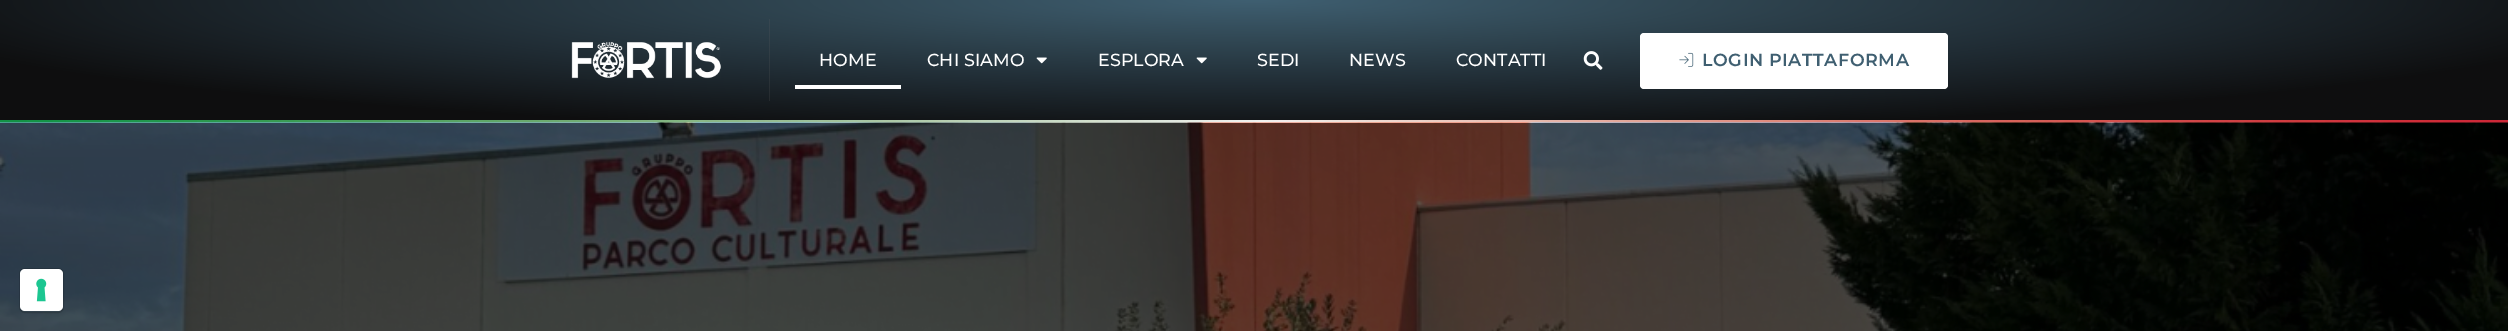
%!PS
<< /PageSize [2508 331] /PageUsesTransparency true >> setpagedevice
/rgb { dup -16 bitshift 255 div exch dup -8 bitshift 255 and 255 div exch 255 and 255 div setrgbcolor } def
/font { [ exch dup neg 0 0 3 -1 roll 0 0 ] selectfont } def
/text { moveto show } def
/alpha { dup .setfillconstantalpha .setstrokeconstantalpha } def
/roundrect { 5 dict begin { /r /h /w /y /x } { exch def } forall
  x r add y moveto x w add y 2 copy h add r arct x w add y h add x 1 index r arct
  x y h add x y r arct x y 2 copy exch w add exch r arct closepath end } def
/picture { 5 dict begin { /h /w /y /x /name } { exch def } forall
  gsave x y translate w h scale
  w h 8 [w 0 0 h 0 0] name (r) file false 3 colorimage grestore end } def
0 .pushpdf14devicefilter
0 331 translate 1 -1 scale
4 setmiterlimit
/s1 { /Montserrat-Medium 17.5 font 16#FFFFFF rgb } def
16#FFFFFF rgb
0 0 2508 331 rectfill
gsave 0 0 moveto 2508 0 lineto 2508 120 lineto 0 120 lineto closepath clip newpath 1254 0 translate 1774 170 scale
<< /ShadingType 3 /ColorSpace /DeviceRGB /Coords [0 0 0 0 0 1] /Extend [true true] /Function << /FunctionType 3 /Domain [0 1] /Functions [<< /FunctionType 2 /Domain [0 1] /C0 [0.247 0.373 0.443] /C1 [0.055 0.055 0.059] /N 1 >> << /FunctionType 2 /Domain [0 1] /C0 [0.055 0.055 0.059] /C1 [0.055 0.055 0.059] /N 1 >>] /Bounds [0.8] /Encode [0 1 0 1] >> >> shfill grestore
gsave 769 19 moveto 770 19 lineto 770 101 lineto 769 101 lineto closepath clip newpath 1254 0 translate 1774 170 scale
<< /ShadingType 3 /ColorSpace /DeviceRGB /Coords [0 0 0 0 0 1] /Extend [true true] /Function << /FunctionType 3 /Domain [0 1] /Functions [<< /FunctionType 2 /Domain [0 1] /C0 [0.275 0.376 0.435] /C1 [0.118 0.118 0.122] /N 1 >> << /FunctionType 2 /Domain [0 1] /C0 [0.118 0.118 0.122] /C1 [0.118 0.118 0.122] /N 1 >>] /Bounds [0.8] /Encode [0 1 0 1] >> >> shfill grestore
(pic1.raw) 571 42 150 37 picture
s1
(HOME) 819 66 text
795 85 106 4 rectfill
(CHI SIAMO) 927 66 text
(pic2.raw) 1036 57 11 7 picture
(ESPLORA) 1098 66 text
(pic3.raw) 1196 57 11 7 picture
(SEDI) 1257 66 text
(NEWS) 1349 66 text
(CONTATTI) 1456 66 text
(pic4.raw) 1583 51 20 19 picture
1640 33 308 56 4 roundrect fill
(pic5.raw) 1679 52 15 15 picture
/Montserrat-SemiBold 17.5 font
16#3F5F71 rgb
1702 66 moveto 0.6 0 (LOGIN PIATTAFORMA) ashow
(pic6.raw) 0 120 2508 3 picture
(pic7.raw) 0 122 2508 209 picture
0.15 alpha
16#000000 rgb
19.5 268.5 44 44 5.5 roundrect stroke
1 alpha
16#FFFFFF rgb
20 269 43 42 5 roundrect fill
(pic8.raw) 36 278 11 24 picture
.poppdf14devicefilter showpage
